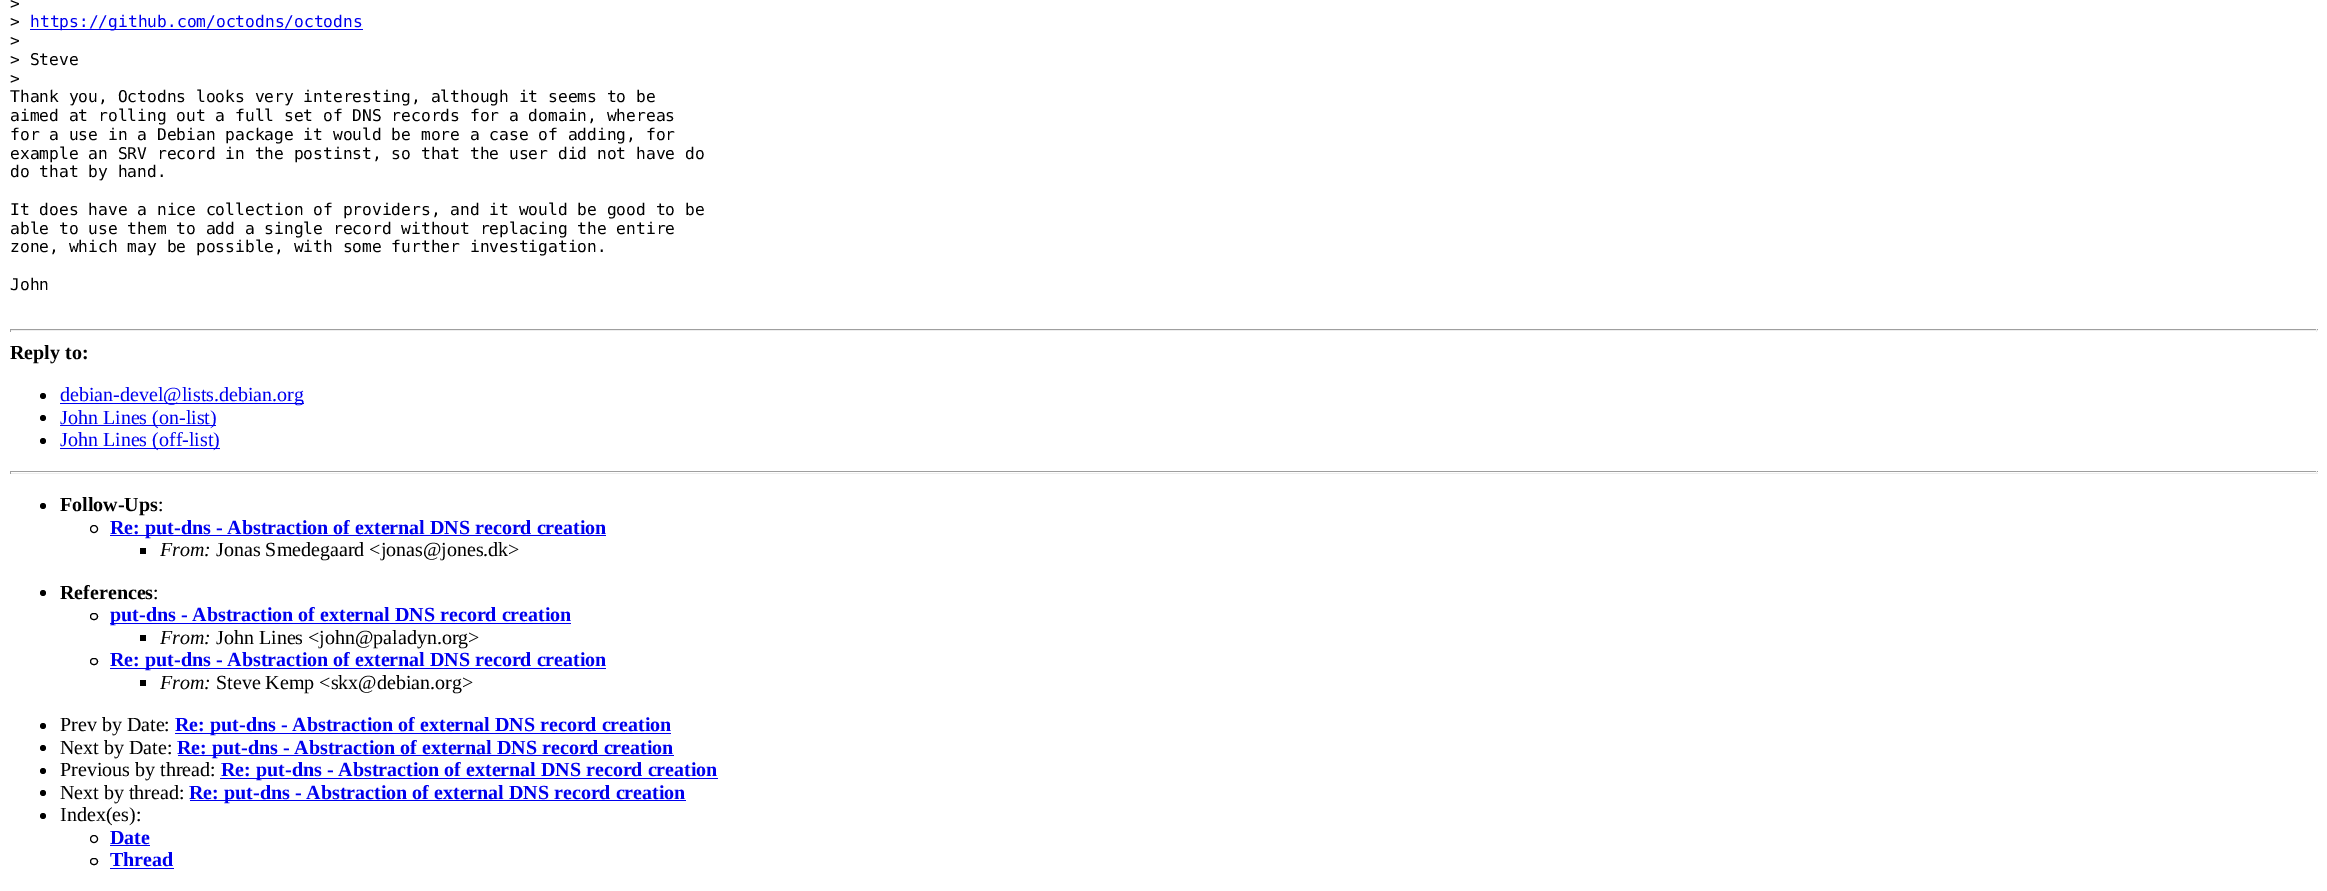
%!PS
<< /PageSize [2327 891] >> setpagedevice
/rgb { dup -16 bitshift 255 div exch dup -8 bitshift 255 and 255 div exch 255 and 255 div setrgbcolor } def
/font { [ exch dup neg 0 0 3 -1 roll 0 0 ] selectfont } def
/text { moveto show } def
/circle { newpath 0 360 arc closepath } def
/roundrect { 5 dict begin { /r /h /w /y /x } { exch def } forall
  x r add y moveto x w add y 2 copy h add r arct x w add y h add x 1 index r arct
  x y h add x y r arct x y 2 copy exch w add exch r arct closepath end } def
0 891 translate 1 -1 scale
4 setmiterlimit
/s1 { /DejaVuSansMono-Regular 16.25 font 16#000000 rgb } def
/s2 { /DejaVuSansMono-Regular 16.25 font 16#0000EE rgb } def
/s3 { /LiberationSerif-Bold 20 font 16#000000 rgb } def
/s4 { /LiberationSerif-Regular 20 font 16#0000EE rgb } def
/s5 { /LiberationSerif-Regular 20 font 16#000000 rgb } def
/s6 { /LiberationSerif-Bold 20 font 16#0000EE rgb } def
/s7 { /LiberationSerif-Italic 20 font 16#000000 rgb } def
16#FFFFFF rgb
0 0 2327 891 rectfill
s1
(>) 10 9 text
(>) 10 27 text
16#0000EE rgb
30 29 333 1 rectfill
(https://github.com/octodns/octodns) 30 27 text
s1
(>) 10 46 text
(> Steve) 10 65 text
(>) 10 84 text
(Thank you, Octodns looks very interesting, although it seems to be) 10 102 text
(aimed at rolling out a full set of DNS records for a domain, whereas) 10 121 text
(for a use in a Debian package it would be more a case of adding, for) 10 140 text
(example an SRV record in the postinst, so that the user did not have do) 10 159 text
(do that by hand.) 10 177 text
(It does have a nice collection of providers, and it would be good to be) 10 215 text
(able to use them to add a single record without replacing the entire) 10 234 text
(zone, which may be possible, with some further investigation.) 10 252 text
(John) 10 290 text
16#9F9F9F rgb
10 329 2308 1 rectfill
16#EEEEEE rgb
2316 329 1 3 rectfill
10 330 2308 1 rectfill
16#9F9F9F rgb
10 329 1 3 rectfill
s3
(Reply to:) 10 359 text
43 396 3 circle fill
16#0000EE rgb
60 403 244 1 rectfill
s4
(debian-devel@lists.debian.org) 60 401 text
16#000000 rgb
43 418 3 circle fill
16#0000EE rgb
60 425 156 1 rectfill
(John Lines \(on-list\)) 60 424 text
16#000000 rgb
43 441 3 circle fill
16#0000EE rgb
60 448 160 1 rectfill
(John Lines \(off-list\)) 60 446 text
16#9F9F9F rgb
10 471 2308 1 rectfill
16#EEEEEE rgb
2316 471 1 3 rectfill
10 473 2308 1 rectfill
16#9F9F9F rgb
10 471 1 3 rectfill
16#000000 rgb
43 506 3 circle fill
s3
(Follow-Ups) 60 511 text
s5
(:) 158 511 text
94 529 3.5 circle stroke
16#0000EE rgb
110 535 496 1 rectfill
s6
(Re: put-dns - Abstraction of external DNS record creation) 110 534 text
16#000000 rgb
140 548 6 6 rectfill
s7
(From:) 160 556 text
s5
(Jonas Smedegaard <jonas@jones.dk>) 216 556 text
43 593 3 circle fill
s3
(References) 60 599 text
s5
(:) 153 599 text
90.5 613.5 7 6 3 roundrect stroke
16#0000EE rgb
110 623 461 1 rectfill
s6
(put-dns - Abstraction of external DNS record creation) 110 621 text
16#000000 rgb
140 635 6 6 rectfill
s7
(From:) 160 644 text
s5
(John Lines <john@paladyn.org>) 216 644 text
90.5 658.5 7 6 3 roundrect stroke
16#0000EE rgb
110 668 496 1 rectfill
s6
(Re: put-dns - Abstraction of external DNS record creation) 110 666 text
16#000000 rgb
140 680 6 6 rectfill
s7
(From:) 160 689 text
s5
(Steve Kemp <skx@debian.org>) 216 689 text
43 726 3 circle fill
(Prev by Date:) 60 731 text
16#0000EE rgb
175 733 496 1 rectfill
s6
(Re: put-dns - Abstraction of external DNS record creation) 175 731 text
16#000000 rgb
43 748 3 circle fill
s5
(Next by Date:) 60 754 text
16#0000EE rgb
178 755 496 1 rectfill
s6
(Re: put-dns - Abstraction of external DNS record creation) 177 754 text
16#000000 rgb
43 771 3 circle fill
s5
(Previous by thread:) 60 776 text
16#0000EE rgb
220 778 498 1 rectfill
s6
(Re: put-dns - Abstraction of external DNS record creation) 221 776 text
16#000000 rgb
43 793 3 circle fill
s5
(Next by thread:) 60 799 text
16#0000EE rgb
190 800 496 1 rectfill
s6
(Re: put-dns - Abstraction of external DNS record creation) 189 799 text
16#000000 rgb
43 816 3 circle fill
s5
(Index\(es\):) 60 821 text
94 839 3.5 circle stroke
s6
(Date) 110 844 text
110 845 40 1 rectfill
16#000000 rgb
90.5 858.5 7 6 3 roundrect stroke
s6
(Thread) 110 866 text
110 868 64 1 rectfill
showpage
